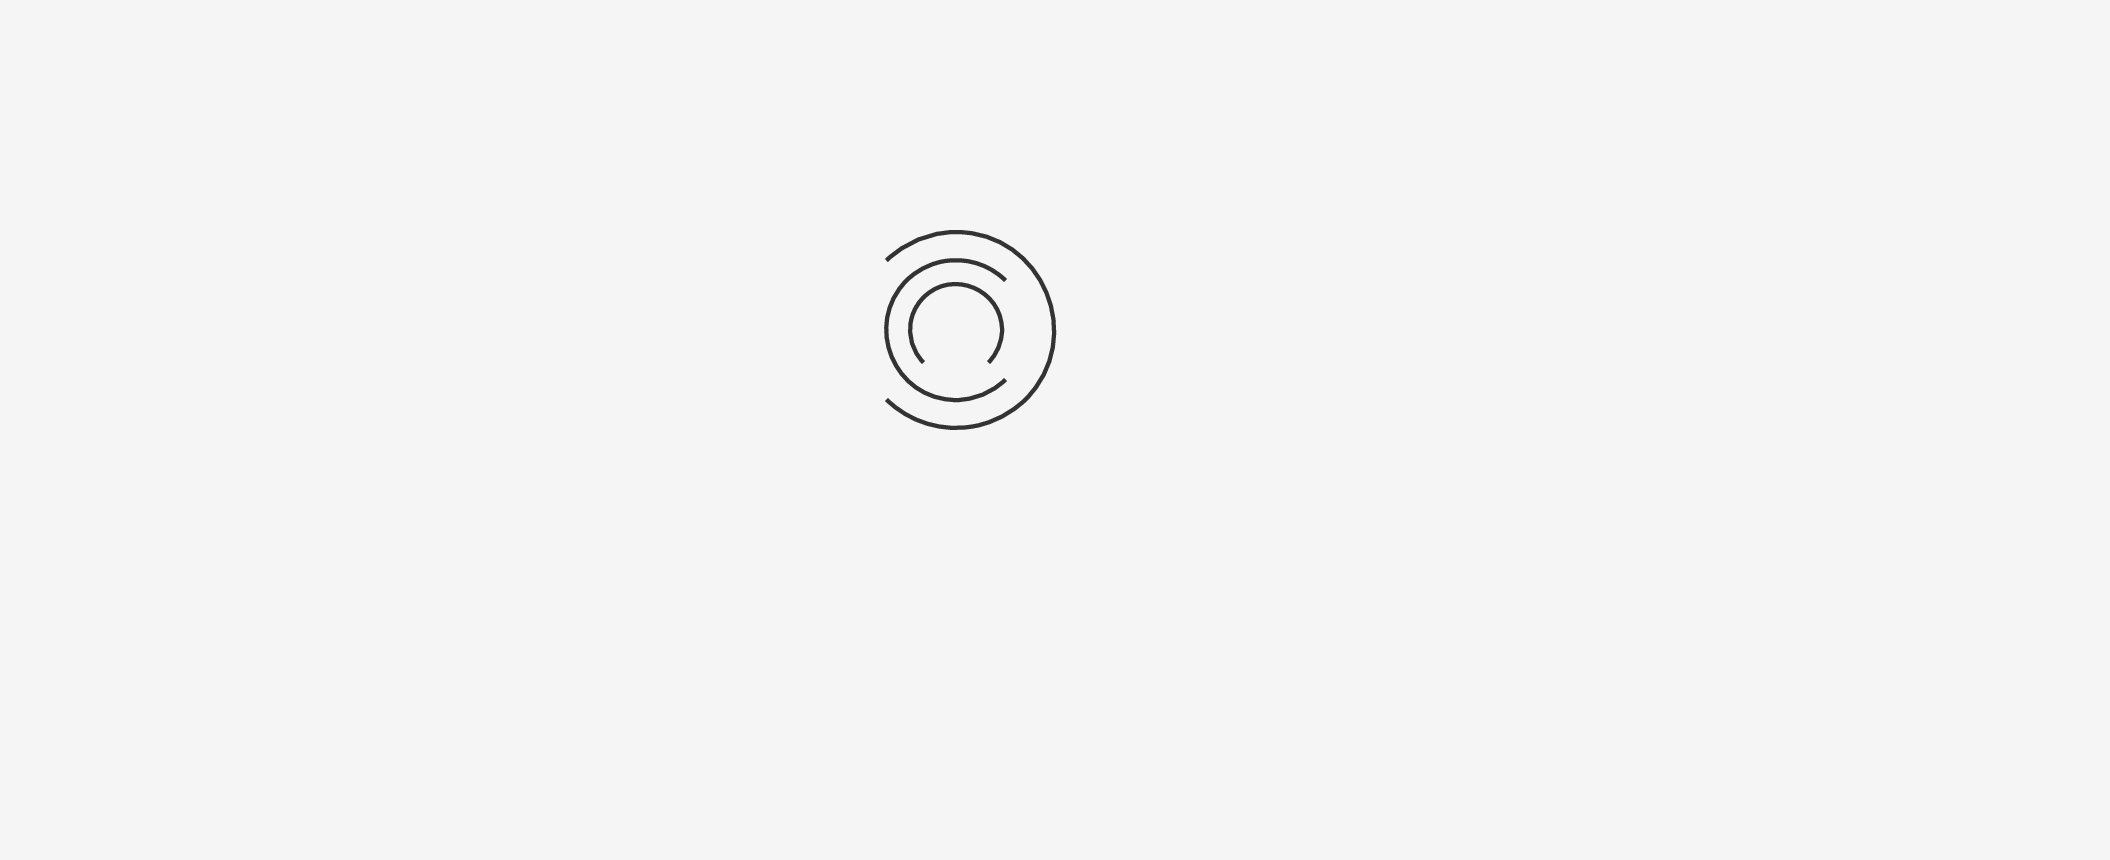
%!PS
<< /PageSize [2110 860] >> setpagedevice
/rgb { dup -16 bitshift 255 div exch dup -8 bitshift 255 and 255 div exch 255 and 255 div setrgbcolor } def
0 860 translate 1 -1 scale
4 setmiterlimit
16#F5F5F5 rgb
0 0 2110 860 rectfill
16#333333 rgb
4 setlinewidth
886.5 260.5 moveto 905 242.5 930 232 956 232 curveto 1043 232 1087 338 1025.5 399.5 curveto 1011.5 413 994 422.5 975 426 curveto 943.5 432.5 909.5 422.5 886.5 399.5 curveto stroke
1005.5 379.5 moveto 992.5 392.5 974.5 400 956 400 curveto 894 400 863 324.5 906.5 280.5 curveto 916 271 929 264 942.5 261.5 curveto 965 257 989 264 1005.5 280.5 curveto stroke
923.5 362.5 moveto 912.5 351.5 908 336 911 321 curveto 912.5 312 917 304 923.5 297.5 curveto 952 268.5 1002 289.5 1002 330 curveto 1002 342 997 354 988.5 362.5 curveto stroke
showpage
